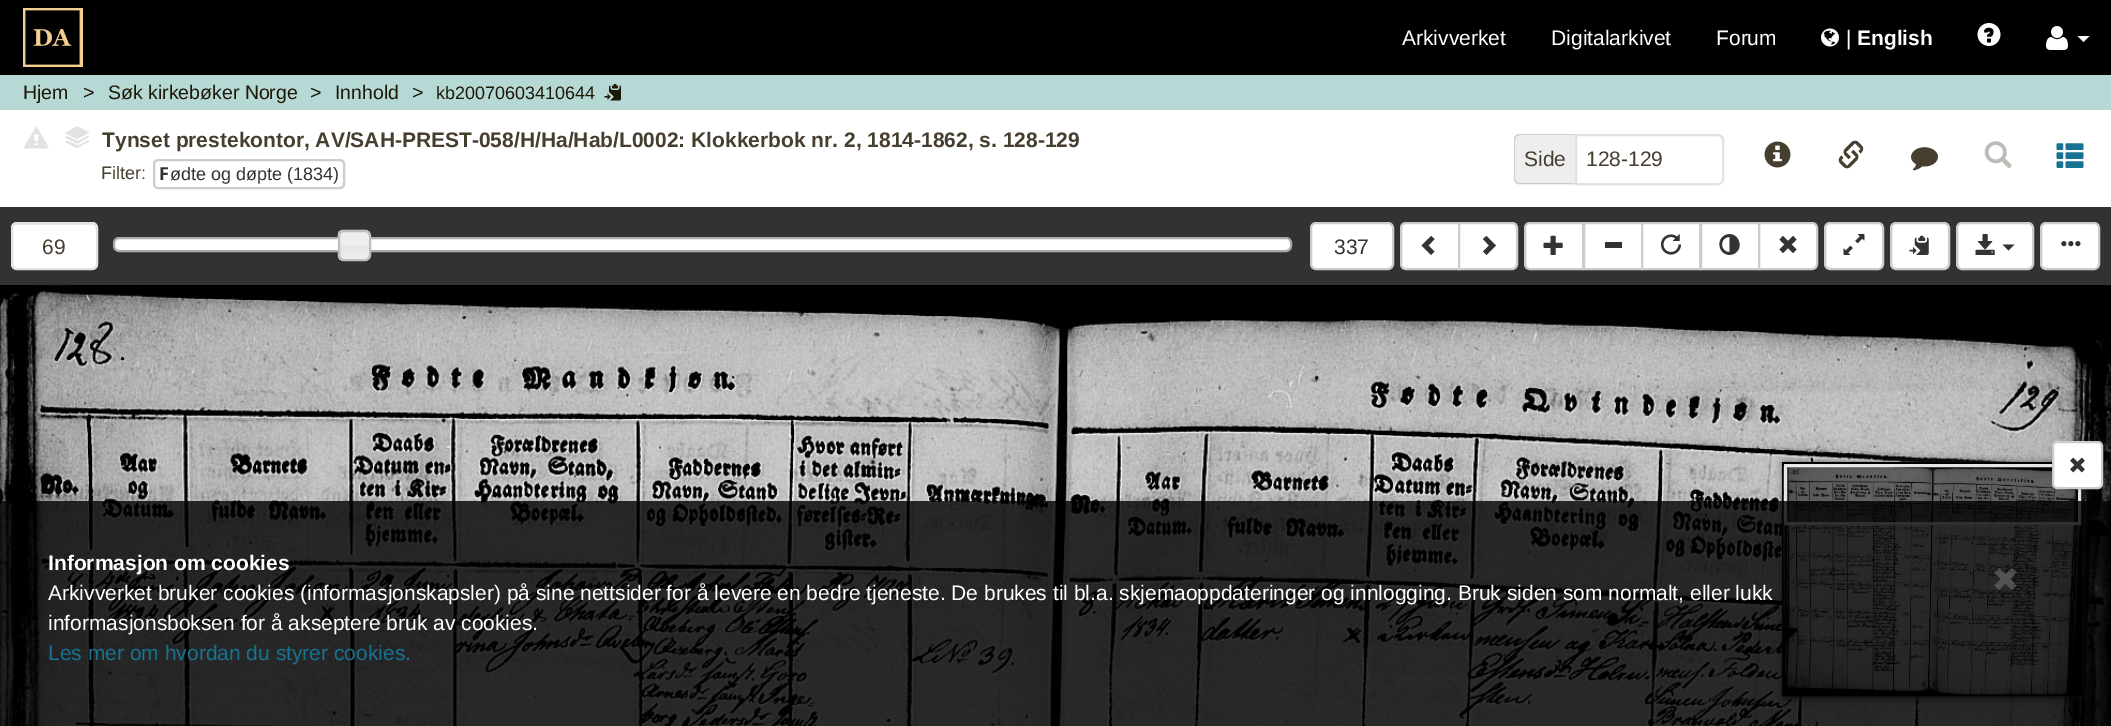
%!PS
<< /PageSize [2111 726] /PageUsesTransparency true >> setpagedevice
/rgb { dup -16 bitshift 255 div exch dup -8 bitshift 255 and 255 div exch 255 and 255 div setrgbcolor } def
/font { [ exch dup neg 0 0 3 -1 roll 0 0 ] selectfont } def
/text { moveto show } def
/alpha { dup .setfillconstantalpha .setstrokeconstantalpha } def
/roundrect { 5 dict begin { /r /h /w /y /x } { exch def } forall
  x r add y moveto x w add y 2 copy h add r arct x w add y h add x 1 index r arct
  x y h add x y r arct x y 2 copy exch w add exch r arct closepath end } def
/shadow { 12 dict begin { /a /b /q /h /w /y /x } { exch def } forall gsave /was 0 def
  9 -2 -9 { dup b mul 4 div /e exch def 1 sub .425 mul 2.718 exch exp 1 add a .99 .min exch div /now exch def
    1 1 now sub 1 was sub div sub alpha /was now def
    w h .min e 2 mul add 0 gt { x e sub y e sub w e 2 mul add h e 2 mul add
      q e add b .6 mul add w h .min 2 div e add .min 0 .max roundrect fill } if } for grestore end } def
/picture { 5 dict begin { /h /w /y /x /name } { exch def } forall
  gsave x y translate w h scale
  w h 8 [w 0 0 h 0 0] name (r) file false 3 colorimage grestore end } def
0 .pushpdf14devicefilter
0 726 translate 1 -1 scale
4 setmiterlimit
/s1 { /LiberationSans-Regular 21 font 16#FFFFFF rgb } def
/s2 { /LiberationSans-Bold 21 font 16#FFFFFF rgb } def
/s3 { /LiberationSans-Regular 19.5 font 16#1D1705 rgb } def
/s4 { /LiberationSans-Regular 18 font 16#1D1705 rgb } def
/s5 { /LiberationSans-Bold 21 font 16#463E2F rgb } def
/s6 { /LiberationSans-Regular 18 font 16#463E2F rgb } def
/s7 { /NotoSans-Bold 18 font 16#333333 rgb } def
/s8 { /LiberationSans-Regular 18 font 16#333333 rgb } def
/s9 { /LiberationSans-Regular 21 font 16#463E2F rgb } def
/s10 { /LiberationSans-Regular 21 font 16#333333 rgb } def
/s11 { /LiberationSans-Regular 21 font 16#177391 rgb } def
16#B6D9D6 rgb
0 0 2111 726 rectfill
16#000000 rgb
0 0 2111 75 rectfill
(pic1.raw) 23 8 60 59 picture
s1
(Arkivverket) 1402 45 text
(Digitalarkivet) 1551 45 text
(Forum) 1716 45 text
(pic2.raw) 1821 28 18 19 picture
(|) 1846 45 text
s2
(English) 1857 45 text
(pic3.raw) 1977 23 24 23 picture
(pic4.raw) 2046 26 22 24 picture
2077.5 36 moveto 2089.5 36 lineto 2083.5 42 lineto closepath fill
s3
(Hjem) 23 99 text
(>) 83 99 text
(Søk kirkebøker Norge) 108 99 text
(>) 310 99 text
(Innhold) 335 99 text
(>) 412 99 text
s4
(kb20070603410644) 436 99 text
(pic5.raw) 604 84 17 17 picture
16#FFFFFF rgb
0 110 2111 97 rectfill
(pic6.raw) 24 127 25 22 picture
(pic11.raw) 65 140 25 8 picture
(pic10.raw) 67 137 21 9 picture
(pic9.raw) 65 135 25 9 picture
(pic8.raw) 68 133 20 8 picture
(pic7.raw) 65 126 25 13 picture
s5
(Tynset prestekontor, AV/SAH-PREST-058/H/Ha/Hab/L0002: Klokkerbok nr. 2, 1814-1862, s. 128-129) 102 147 text
s6
(Filter:) 101 179 text
16#CCCCCC rgb
2 setlinewidth
154 160 190 28 4 roundrect stroke
s7
(F) 159 180 text
s8
(ødte og døpte \(1834\)) 170 180 text
16#EEEEEE rgb
1520 134 moveto 1575 134 lineto 1575 185 lineto 1520 185 lineto 1516.5 185 1514 182.5 1514 179 curveto 1514 140 lineto 1514 136.5 1516.5 134 1520 134 curveto closepath fill
16#CCCCCC rgb
1520 134 moveto 1575 134 lineto 1575 184 lineto 1520 184 lineto 1516 184 1514 182 1514 178 curveto 1514 140 lineto 1514 136 1516 134 1520 134 curveto closepath 1520 135 moveto 1575 135 lineto 1575 183 lineto 1520 183 lineto 1517 183 1515 181 1515 178 curveto 1515 140 lineto 1515 137 1517 135 1520 135 curveto closepath eofill
s9
(Side) 1524 166 text
16#ECECEC rgb
1577 135 moveto 1577 136 lineto 1718 136 lineto 1720 136 1722 139 1722 141 curveto 1722 138 1720 135 1717 135 curveto closepath fill
16#E3E2E0 rgb
1576 135 moveto 1718 135 lineto 1721 135 1723 137 1723 140 curveto 1723 179 lineto 1723 182 1721 184 1718 184 curveto 1576 184 lineto closepath stroke
s9
(128-129) 1586 166 text
(pic12.raw) 1764 141 27 27 picture
(pic13.raw) 1838 140 26 29 picture
(pic14.raw) 1911 147 27 24 picture
(pic15.raw) 1984 141 28 28 picture
(pic16.raw) 2056 143 28 25 picture
16#333231 rgb
0 207 2111 78 rectfill
16#FFFFFF rgb
11 222 87 48 6 roundrect fill
16#ECECEC rgb
16 225 moveto 92 225 lineto 94 225 96 227 96 230 curveto 96 221 84 224 79 224 curveto 29 224 lineto 24 224 12 221 12 230 curveto 12 227 14 225 16 225 curveto closepath fill
16#E3E2E0 rgb
12 223 85 46 5 roundrect stroke
s9
(69) 42 254 text
16#FFFFFF rgb
114 238 1177 13 5 roundrect gsave fill grestore
16#AAAAAA rgb
stroke
(pic17.raw) 337 229 34 32 picture
16#BFBEBD rgb
339 231 31 29 5 roundrect stroke
16#FFFFFF rgb
1311 223 82 46 5 roundrect gsave fill grestore
16#CCCCCC rgb
stroke
s10
(337) 1334 254 text
16#FFFFFF rgb
1406 223 moveto 1459 223 lineto 1459 269 lineto 1406 269 lineto 1403 269 1401 267 1401 264 curveto 1401 228 lineto 1401 225 1403 223 1406 223 curveto closepath gsave fill grestore
16#CCCCCC rgb
stroke
16#333333 rgb
1434.5 239 moveto 1428.5 245.5 lineto 1434.5 251.5 lineto 1431 255 lineto 1421.5 245.5 lineto 1431 236 lineto closepath fill
16#FFFFFF rgb
1459 223 moveto 1512 223 lineto 1515 223 1517 225 1517 228 curveto 1517 264 lineto 1517 267 1515 269 1512 269 curveto 1459 269 lineto closepath gsave fill grestore
16#CCCCCC rgb
stroke
16#333333 rgb
1496 245.5 moveto 1486.5 255 lineto 1483 251.5 lineto 1489 245.5 lineto 1483 239 lineto 1486.5 236 lineto closepath fill
16#FFFFFF rgb
1530 223 moveto 1583 223 lineto 1583 269 lineto 1530 269 lineto 1527 269 1525 267 1525 264 curveto 1525 228 lineto 1525 225 1527 223 1530 223 curveto closepath gsave fill grestore
16#CCCCCC rgb
stroke
(pic18.raw) 1543 235 20 20 picture
16#FFFFFF rgb
1584 223 moveto 1642 223 lineto 1642 269 lineto 1584 269 lineto closepath gsave fill grestore
16#CCCCCC rgb
stroke
16#333333 rgb
1605 242 17 6 rectfill
16#FFFFFF rgb
1642 223 moveto 1700 223 lineto 1700 269 lineto 1642 269 lineto closepath gsave fill grestore
16#CCCCCC rgb
stroke
(pic19.raw) 1660 234 22 21 picture
16#FFFFFF rgb
1701 223 moveto 1759 223 lineto 1759 269 lineto 1701 269 lineto closepath gsave fill grestore
16#CCCCCC rgb
stroke
16#333333 rgb
1725.5 235 moveto 1738 230 1745.5 248.5 1733.5 254 curveto 1721 259 1713.5 240.5 1725.5 235 curveto closepath 1729.5 252 moveto 1729.5 237 lineto 1719.5 237 1719.5 252 1729.5 252 curveto closepath fill
16#FFFFFF rgb
1759 223 moveto 1812 223 lineto 1815 223 1817 225 1817 228 curveto 1817 264 lineto 1817 267 1815 269 1812 269 curveto 1759 269 lineto closepath gsave fill grestore
16#CCCCCC rgb
stroke
(pic20.raw) 1779 236 18 17 picture
16#FFFFFF rgb
1825 223 58 46 5 roundrect gsave fill grestore
16#CCCCCC rgb
stroke
(pic21.raw) 1843 234 22 21 picture
16#FFFFFF rgb
1891 223 58 46 5 roundrect gsave fill grestore
16#CCCCCC rgb
stroke
(pic22.raw) 1909 235 20 20 picture
16#FFFFFF rgb
1957 223 76 46 5 roundrect gsave fill grestore
16#CCCCCC rgb
stroke
(pic23.raw) 1975 234 20 21 picture
16#333333 rgb
2002.5 244.5 moveto 2014.5 244.5 lineto 2008.5 250.5 lineto closepath fill
16#FFFFFF rgb
2041 223 58 46 5 roundrect gsave fill grestore
16#CCCCCC rgb
stroke
(pic24.raw) 2061 241 20 6 picture
(pic25.raw) 0 285 2111 441 picture
16#323232 rgb
1784 464 300 234 0 4 1 shadow
16#000000 rgb
1783 463 298 232 rectstroke
(pic27.raw) 1783 464 298 231 picture
0.5 alpha
1784 464 297 61 rectfill
0.9 alpha
16#FFFFFF rgb
3 setlinewidth
1785.5 465.5 294 58 rectstroke
1 alpha
16#000000 rgb
2052 443 51 48 5 1 0.1 shadow
16#FFFFFF rgb
2053 442 49 46 4 roundrect gsave fill grestore
16#CCCCCC rgb
2 setlinewidth
stroke
(pic26.raw) 2070 457 15 16 picture
0.8 alpha
16#000000 rgb
0 501 2111 225 rectfill
1 alpha
s2
(Informasjon om cookies) 48 570 text
(pic28.raw) 1994 568 23 22 picture
s1
(Arkivverket bruker cookies \(informasjonskapsler\) på sine nettsider for å levere en bedre tjeneste. De brukes til bl.a. skjemaoppdateringer og innlogging. Bruk siden som normalt, eller lukk) 48 600 text
(informasjonsboksen for å akseptere bruk av cookies.) 48 630 text
s11
(Les mer om hvordan du styrer cookies.) 48 660 text
.poppdf14devicefilter showpage
